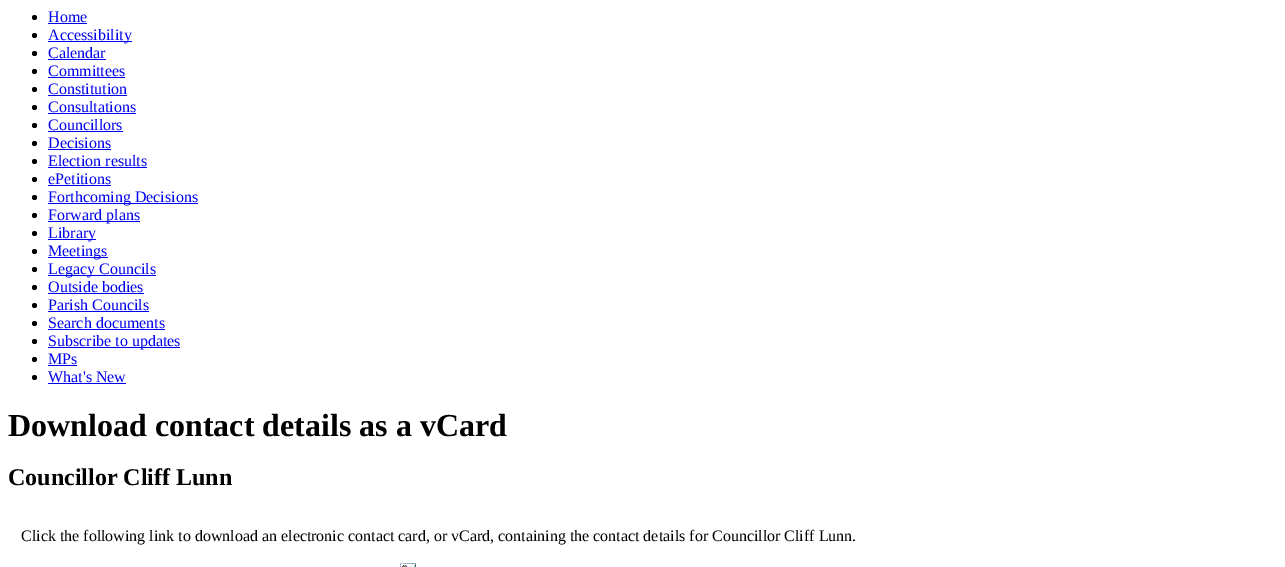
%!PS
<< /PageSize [1285 567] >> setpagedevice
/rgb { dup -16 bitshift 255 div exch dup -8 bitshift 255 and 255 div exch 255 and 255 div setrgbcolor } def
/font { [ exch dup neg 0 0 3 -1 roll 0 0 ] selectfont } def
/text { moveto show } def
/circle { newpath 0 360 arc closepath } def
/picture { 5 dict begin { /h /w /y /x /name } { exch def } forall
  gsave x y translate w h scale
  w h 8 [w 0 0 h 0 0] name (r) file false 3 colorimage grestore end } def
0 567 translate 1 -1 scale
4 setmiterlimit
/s1 { /LiberationSerif-Regular 16 font 16#0000EE rgb } def
/s2 { /LiberationSerif-Bold 32 font 16#000000 rgb } def
/s3 { /LiberationSerif-Bold 24 font 16#000000 rgb } def
/s4 { /LiberationSerif-Regular 16 font 16#000000 rgb } def
16#FFFFFF rgb
0 0 1285 567 rectfill
16#000000 rgb
34.5 17.5 2.5 circle fill
s1
(Home) 48 22 text
48 23 39 1 rectfill
16#000000 rgb
34.5 35.5 2.5 circle fill
16#0000EE rgb
48 41 84 1 rectfill
(Accessibility) 48 40 text
16#000000 rgb
34.5 53.5 2.5 circle fill
s1
(Calendar) 48 58 text
48 59 58 1 rectfill
16#000000 rgb
34.5 71.5 2.5 circle fill
s1
(Committees) 48 76 text
48 77 77 1 rectfill
16#000000 rgb
34.5 89.5 2.5 circle fill
s1
(Constitution) 48 94 text
48 95 79 1 rectfill
16#000000 rgb
34.5 107.5 2.5 circle fill
s1
(Consultations) 48 112 text
48 113 88 1 rectfill
16#000000 rgb
34.5 125.5 2.5 circle fill
s1
(Councillors) 48 130 text
48 131 75 1 rectfill
16#000000 rgb
34.5 143.5 2.5 circle fill
s1
(Decisions) 48 148 text
48 149 63 1 rectfill
16#000000 rgb
34.5 161.5 2.5 circle fill
s1
(Election results) 48 166 text
48 167 99 1 rectfill
16#000000 rgb
34.5 179.5 2.5 circle fill
s1
(ePetitions) 48 184 text
48 185 63 1 rectfill
16#000000 rgb
34.5 197.5 2.5 circle fill
16#0000EE rgb
48 203 150 1 rectfill
(Forthcoming Decisions) 48 202 text
16#000000 rgb
34.5 215.5 2.5 circle fill
16#0000EE rgb
48 221 92 1 rectfill
(Forward plans) 48 220 text
16#000000 rgb
34.5 233.5 2.5 circle fill
16#0000EE rgb
48 239 48 1 rectfill
(Library) 48 238 text
16#000000 rgb
34.5 251.5 2.5 circle fill
16#0000EE rgb
48 257 60 1 rectfill
(Meetings) 48 256 text
16#000000 rgb
34.5 269.5 2.5 circle fill
16#0000EE rgb
48 275 108 1 rectfill
(Legacy Councils) 48 274 text
16#000000 rgb
34.5 287.5 2.5 circle fill
s1
(Outside bodies) 48 292 text
48 293 96 1 rectfill
16#000000 rgb
34.5 305.5 2.5 circle fill
s1
(Parish Councils) 48 310 text
48 311 101 1 rectfill
16#000000 rgb
34.5 323.5 2.5 circle fill
s1
(Search documents) 48 328 text
48 329 117 1 rectfill
16#000000 rgb
34.5 341.5 2.5 circle fill
16#0000EE rgb
48 347 132 1 rectfill
(Subscribe to updates) 48 346 text
16#000000 rgb
34.5 359.5 2.5 circle fill
s1
(MPs) 48 364 text
48 365 29 1 rectfill
16#000000 rgb
34.5 377.5 2.5 circle fill
s1
(What's New) 48 382 text
48 383 78 1 rectfill
s2
(Download contact details as a vCard) 8 436 text
s3
(Councillor Cliff Lunn) 8 485 text
s4
(Click the following link to download an electronic contact card, or vCard, containing the contact details for Councillor Cliff Lunn.) 21 541 text
(pic1.raw) 400 563 16 4 picture
showpage
